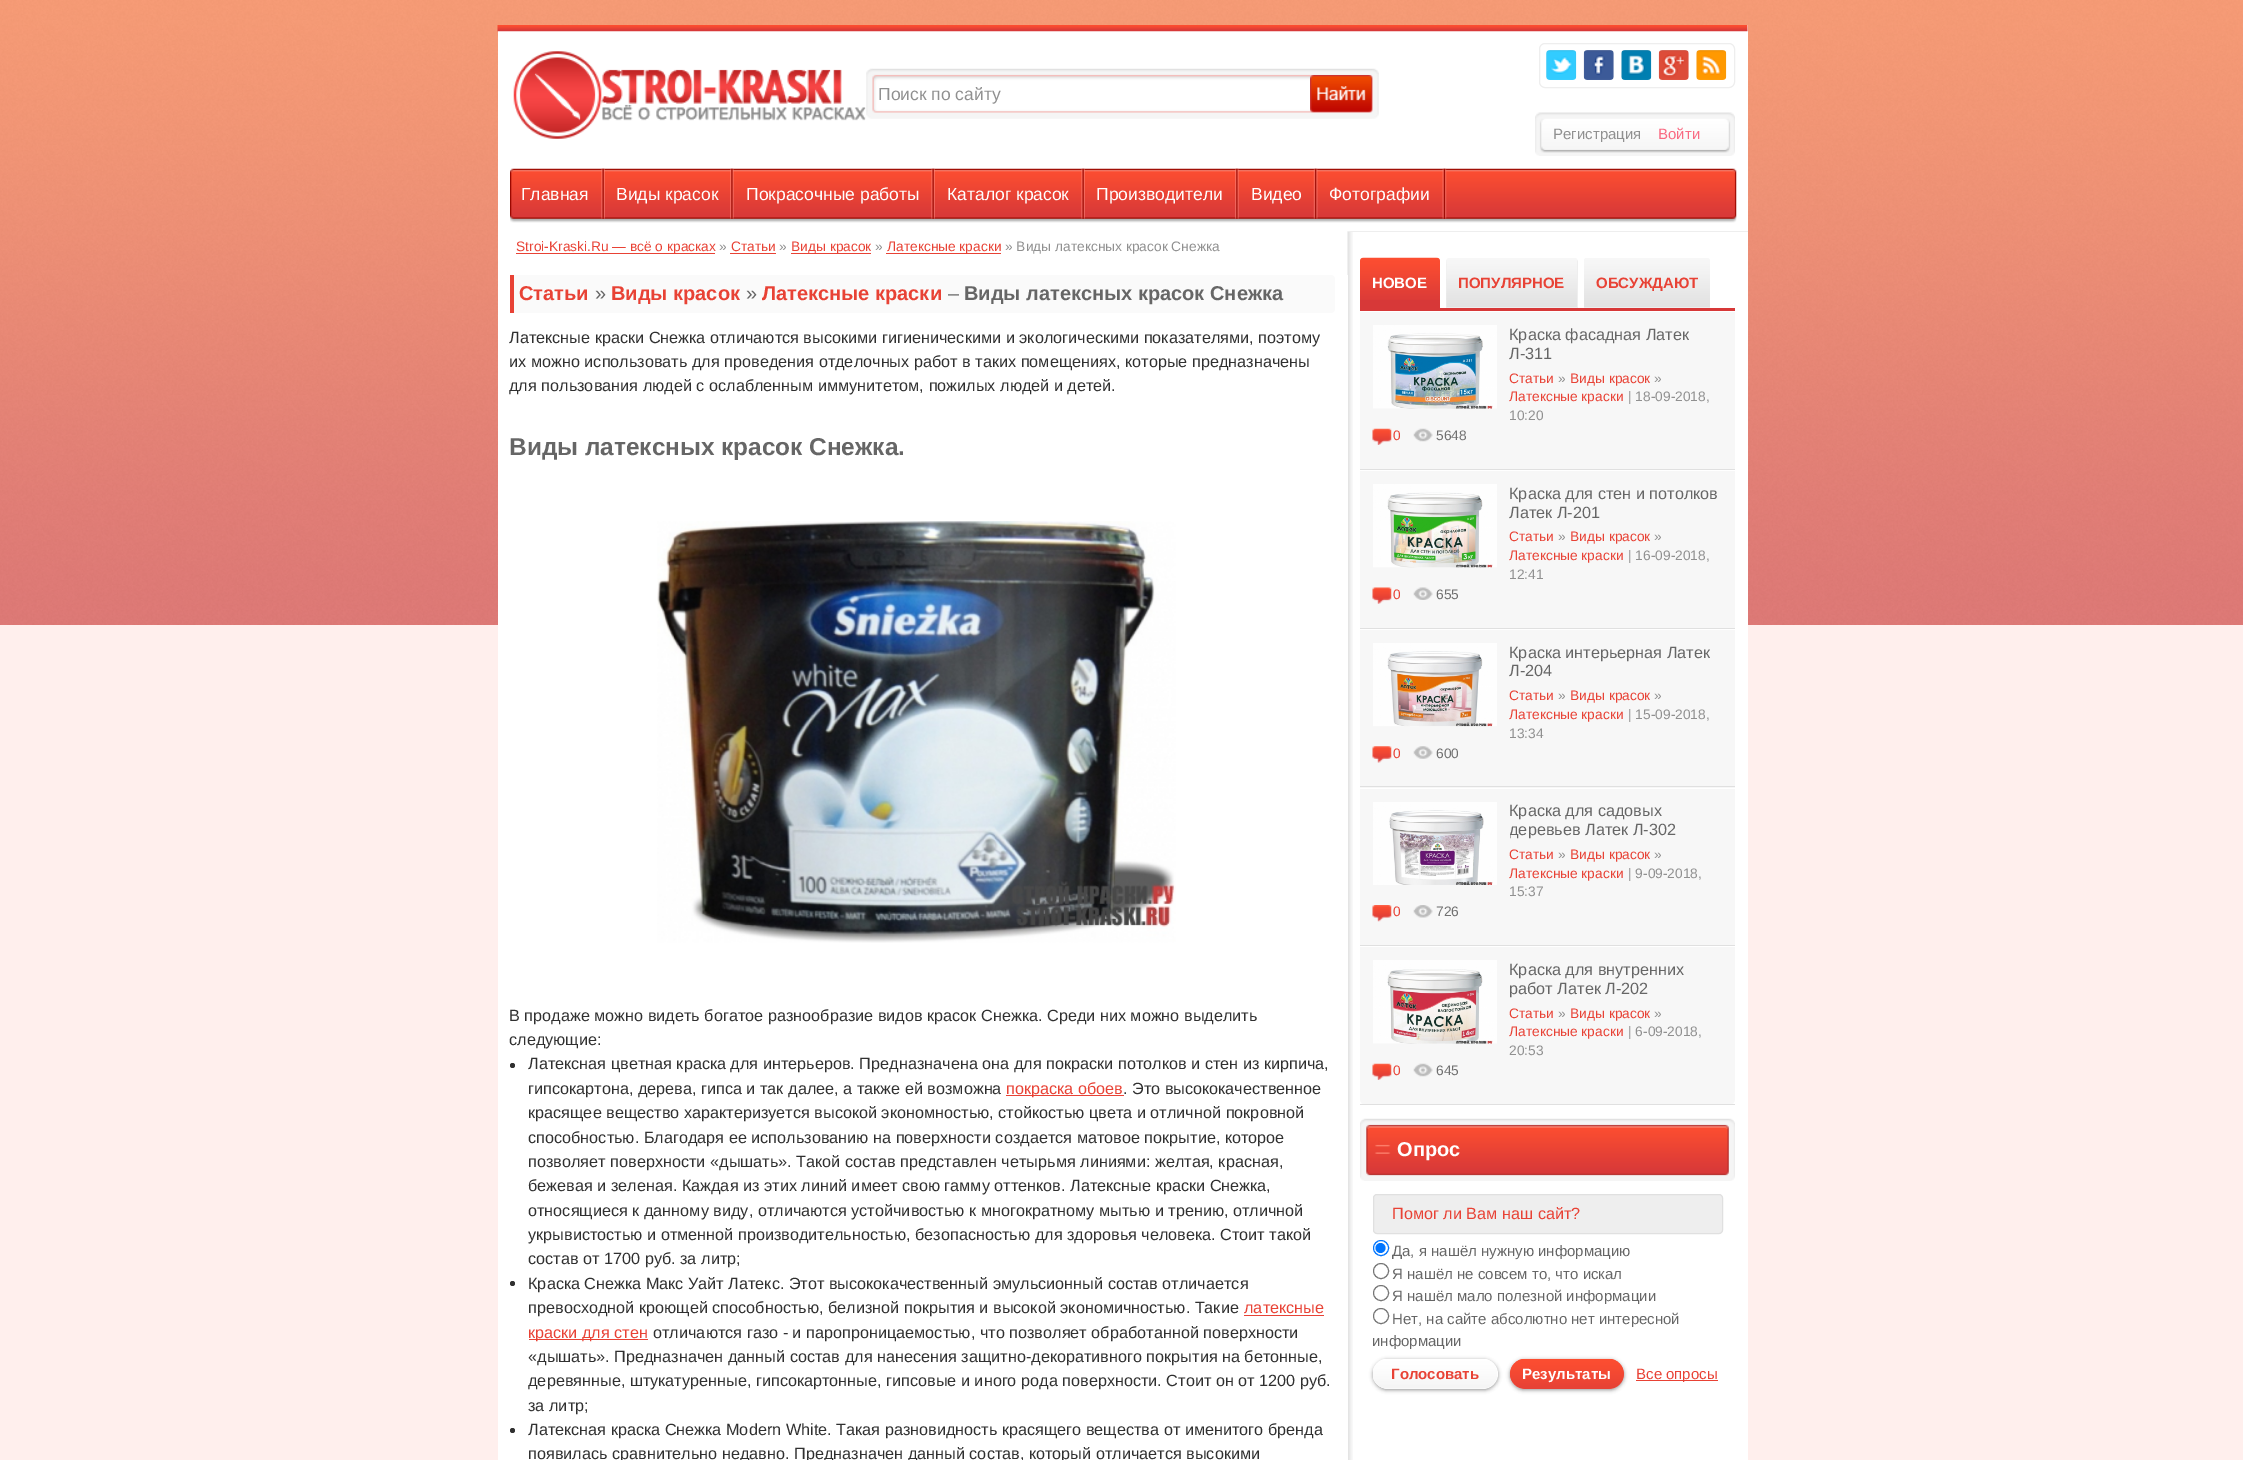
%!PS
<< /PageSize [2243 1460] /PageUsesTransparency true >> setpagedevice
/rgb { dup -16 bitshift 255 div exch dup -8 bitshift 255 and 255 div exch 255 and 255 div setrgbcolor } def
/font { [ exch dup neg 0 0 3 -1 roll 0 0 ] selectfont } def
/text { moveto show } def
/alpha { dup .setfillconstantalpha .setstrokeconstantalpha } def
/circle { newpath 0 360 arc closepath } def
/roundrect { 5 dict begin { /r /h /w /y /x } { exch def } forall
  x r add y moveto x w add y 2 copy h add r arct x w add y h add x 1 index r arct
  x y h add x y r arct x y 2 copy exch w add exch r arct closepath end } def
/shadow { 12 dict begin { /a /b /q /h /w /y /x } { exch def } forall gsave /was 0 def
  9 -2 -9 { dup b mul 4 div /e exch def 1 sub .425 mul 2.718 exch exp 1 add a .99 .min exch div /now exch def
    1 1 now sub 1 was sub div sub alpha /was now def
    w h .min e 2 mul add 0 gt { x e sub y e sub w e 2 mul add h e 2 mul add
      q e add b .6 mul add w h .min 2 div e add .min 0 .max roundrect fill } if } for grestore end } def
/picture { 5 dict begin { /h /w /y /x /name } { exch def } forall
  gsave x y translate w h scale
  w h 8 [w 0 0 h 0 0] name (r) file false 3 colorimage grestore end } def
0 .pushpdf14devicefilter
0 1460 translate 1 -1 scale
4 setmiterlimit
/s1 { /LiberationSans-Regular 17.5 font 16#909090 rgb } def
/s2 { /LiberationSans-Regular 15 font 16#909090 rgb } def
/s3 { /LiberationSans-Regular 15 font 16#F96A82 rgb } def
/s4 { /LiberationSans-Regular 17.5 font 16#FFFFFF rgb } def
/s5 { /LiberationSans-Regular 13.75 font 16#E84235 rgb } def
/s6 { /LiberationSans-Regular 13.75 font 16#909090 rgb } def
/s7 { /LiberationSans-Bold 20 font 16#E84235 rgb } def
/s8 { /LiberationSans-Regular 20 font 16#666666 rgb } def
/s9 { /LiberationSans-Bold 20 font 16#666666 rgb } def
/s10 { /LiberationSans-Regular 16.25 font 16#303030 rgb } def
/s11 { /LiberationSans-Bold 24.4 font 16#666666 rgb } def
/s12 { /LiberationSans-Regular 16.25 font 16#E84235 rgb } def
/s13 { /LiberationSans-Bold 15 font 16#FFFFFF rgb } def
/s14 { /LiberationSans-Bold 15 font 16#E84235 rgb } def
/s15 { /LiberationSans-Regular 16.25 font 16#666666 rgb } def
/s16 { /LiberationSans-Regular 13.75 font 16#707070 rgb } def
/s17 { /LiberationSans-Bold 20 font 16#FFFFFF rgb } def
/s18 { /LiberationSans-Regular 15 font 16#666666 rgb } def
/s19 { /LiberationSans-Regular 15 font 16#E84235 rgb } def
16#FFEFED rgb
0 0 2243 1460 rectfill
(pic1.raw) 0 0 2243 625 picture
16#FFFFFF rgb
498 25 1250 1435 rectfill
(pic2.raw) 497 25 1251 7 picture
(pic3.raw) 513 51 353 88 picture
(pic4.raw) 866 68 513 51 picture
s1
(Поиск по сайту) 878 100 text
(pic5.raw) 1310 75 63 38 picture
16#EEEEEE rgb
1539.5 43.5 195 44 5.5 roundrect stroke
(pic6.raw) 1546 50 31 30 picture
(pic7.raw) 1583 50 31 30 picture
(pic8.raw) 1621 50 31 30 picture
(pic9.raw) 1658 50 31 30 picture
(pic10.raw) 1696 50 31 30 picture
(pic11.raw) 1535 112 200 44 picture
s2
(Регистрация) 1553 139 text
s3
(Войти) 1658 139 text
(pic12.raw) 510 168 1227 55 picture
(pic13.raw) 601 168 4 51 picture
s4
(Главная) 521 200 text
(pic14.raw) 730 168 4 51 picture
(Виды красок) 616 200 text
(pic13.raw) 931 168 4 51 picture
(Покрасочные работы) 746 200 text
(pic13.raw) 1081 168 4 51 picture
(Каталог красок) 947 200 text
(pic15.raw) 1235 168 4 51 picture
(Производители) 1096 200 text
(pic16.raw) 1313 168 5 51 picture
(Видео) 1251 200 text
(pic17.raw) 1442 168 5 51 picture
(Фотографии) 1329 200 text
(pic18.raw) 1347 231 6 1229 picture
16#E84235 rgb
516 253 199 1 rectfill
s5
(Stroi-Kraski.Ru — всё о красках) 516 251 text
s6
(») 719 251 text
s5
(Статьи) 731 251 text
730 253 46 1 rectfill
s6
(») 779 251 text
16#E84235 rgb
791 253 80 1 rectfill
(Виды красок) 791 251 text
s6
(») 875 251 text
16#E84235 rgb
886 253 115 1 rectfill
(Латексные краски) 887 251 text
s6
(» Виды латексных красок Снежка) 1005 251 text
16#FFFFFF rgb
1347 275 1 1185 rectfill
16#FAFAFA rgb
510 275 moveto 1331 275 lineto 1333 275 1335 277 1335 279 curveto 1335 309 lineto 1335 311 1333 313 1331 313 curveto 510 313 lineto closepath fill
16#E84235 rgb
510 275 4 38 rectfill
s7
(Статьи) 519 300 text
s8
(») 595 300 text
s7
(Виды красок) 611 300 text
s8
(») 746 300 text
s7
(Латексные краски) 762 300 text
s8
(–) 948 300 text
s9
(Виды латексных красок Снежка) 964 300 text
s10
(Латексные краски Снежка отличаются высокими гигиеническими и экологическими показателями, поэтому) 509 343 text
(их можно использовать для проведения отделочных работ в таких помещениях, которые предназначены) 509 367 text
(для пользования людей с ослабленным иммунитетом, пожилых людей и детей.) 509 391 text
s11
(Виды латексных красок Снежка.) 509 455 text
(pic19.raw) 657 521 519 422 picture
s10
(В продаже можно видеть богатое разнообразие видов красок Снежка. Среди них можно выделить) 509 1021 text
(следующие:) 509 1045 text
512.5 1065.5 2.5 circle fill
(Латексная цветная краска для интерьеров. Предназначена она для покраски потолков и стен из кирпича,) 528 1069 text
(гипсокартона, дерева, гипса и так далее, а также ей возможна) 528 1094 text
16#E84235 rgb
1006 1095 118 1 rectfill
(покраска обоев) 1006 1094 text
s10
(. Это высококачественное) 1123 1094 text
(красящее вещество характеризуется высокой экономностью, стойкостью цвета и отличной покровной) 528 1118 text
(способностью. Благодаря ее использованию на поверхности создается матовое покрытие, которое) 528 1143 text
(позволяет поверхности «дышать». Такой состав представлен четырьмя линиями: желтая, красная,) 528 1167 text
(бежевая и зеленая. Каждая из этих линий имеет свою гамму оттенков. Латексные краски Снежка,) 528 1191 text
(относящиеся к данному виду, отличаются устойчивостью к многократному мытью и трению, отличной) 528 1216 text
(укрывистостью и отменной производительностью, безопасностью для здоровья человека. Стоит такой) 528 1240 text
(состав от 1700 руб. за литр;) 528 1264 text
512.5 1283.5 2.5 circle fill
(Краска Снежка Макс Уайт Латекс. Этот высококачественный эмульсионный состав отличается) 528 1289 text
(превосходной кроющей способностью, белизной покрытия и высокой экономичностью. Такие) 528 1313 text
s12
(латексные) 1244 1313 text
1244 1315 80 1 rectfill
529 1339 119 1 rectfill
(краски для стен) 528 1338 text
s10
(отличаются газо - и паропроницаемостью, что позволяет обработанной поверхности) 653 1338 text
(«дышать». Предназначен данный состав для нанесения защитно-декоративного покрытия на бетонные,) 528 1362 text
(деревянные, штукатуренные, гипсокартонные, гипсовые и иного рода поверхности. Стоит он от 1200 руб.) 528 1386 text
(за литр;) 528 1411 text
512.5 1430.5 2.5 circle fill
(Латексная краска Снежка Modern White. Такая разновидность красящего вещества от именитого бренда) 528 1435 text
(появилась сравнительно недавно. Предназначен данный состав, который отличается высокими) 528 1459 text
16#EEEEEE rgb
1348 231 400 1 rectfill
16#D73838 rgb
1360 308 375 3 rectfill
1364 258 moveto 1436 258 lineto 1438 258 1440 260 1440 262 curveto 1440 308 lineto 1360 308 lineto 1360 262 lineto 1360 260 1362 258 1364 258 curveto closepath fill
(pic20.raw) 1360 257 80 43 picture
s13
(НОВОЕ) 1372 288 text
16#EEEEEE rgb
1450 258 moveto 1574 258 lineto 1576 258 1578 260 1578 262 curveto 1578 308 lineto 1446 308 lineto 1446 262 lineto 1446 260 1448 258 1450 258 curveto closepath fill
(pic21.raw) 1446 258 131 49 picture
s14
(ПОПУЛЯРНОЕ) 1458 288 text
16#EEEEEE rgb
1588 258 moveto 1706 258 lineto 1708 258 1710 260 1710 262 curveto 1710 308 lineto 1584 308 lineto 1584 262 lineto 1584 260 1586 258 1588 258 curveto closepath fill
(pic22.raw) 1584 258 126 49 picture
s14
(ОБСУЖДАЮТ) 1596 288 text
16#F7F7F7 rgb
1360 311 moveto 1735 311 lineto 1735 1099 lineto 1735 1102.5 1732.5 1105 1729 1105 curveto 1366 1105 lineto 1362.5 1105 1360 1102.5 1360 1099 curveto closepath fill
16#FFFFFF rgb
1360 311 375 1 rectfill
16#E0E0E0 rgb
1360 469 375 1 rectfill
(pic23.raw) 1373 325 124 84 picture
s15
(Краска фасадная Латек) 1509 340 text
(Л-311) 1509 359 text
s5
(Статьи) 1509 383 text
s6
(») 1558 383 text
s5
(Виды красок) 1570 383 text
s6
(») 1654 383 text
s5
(Латексные краски) 1509 401 text
s6
(| 18-09-2018,) 1628 401 text
(10:20) 1509 420 text
(pic24.raw) 1372 428 20 17 picture
s5
(0) 1393 440 text
(pic25.raw) 1413 428 20 14 picture
s16
(5648) 1436 440 text
16#FFFFFF rgb
1360 470 375 1 rectfill
16#E0E0E0 rgb
1360 628 375 1 rectfill
(pic26.raw) 1373 484 124 84 picture
s15
(Краска для стен и потолков) 1509 499 text
(Латек Л-201) 1509 518 text
s5
(Статьи) 1509 541 text
s6
(») 1558 541 text
s5
(Виды красок) 1570 541 text
s6
(») 1654 541 text
s5
(Латексные краски) 1509 560 text
s6
(| 16-09-2018,) 1628 560 text
(12:41) 1509 579 text
(pic27.raw) 1372 587 20 17 picture
s5
(0) 1393 599 text
(pic28.raw) 1413 587 20 13 picture
s16
(655) 1436 599 text
16#FFFFFF rgb
1360 629 375 1 rectfill
16#E0E0E0 rgb
1360 786 375 1 rectfill
(pic29.raw) 1373 643 124 84 picture
s15
(Краска интерьерная Латек) 1509 658 text
(Л-204) 1509 676 text
s5
(Статьи) 1509 700 text
s6
(») 1558 700 text
s5
(Виды красок) 1570 700 text
s6
(») 1654 700 text
s5
(Латексные краски) 1509 719 text
s6
(| 15-09-2018,) 1628 719 text
(13:34) 1509 738 text
(pic30.raw) 1372 746 20 17 picture
s5
(0) 1393 758 text
(pic31.raw) 1413 746 20 13 picture
s16
(600) 1436 758 text
16#FFFFFF rgb
1360 788 375 1 rectfill
16#E0E0E0 rgb
1360 945 375 1 rectfill
(pic32.raw) 1373 802 124 83 picture
s15
(Краска для садовых) 1509 816 text
gsave
1510 801 213 38 rectclip
(деревьев Латек Л-302) 1509 835 text
grestore
s5
(Статьи) 1509 859 text
s6
(») 1558 859 text
s5
(Виды красок) 1570 859 text
s6
(») 1654 859 text
s5
(Латексные краски) 1509 878 text
s6
(| 9-09-2018,) 1628 878 text
(15:37) 1509 896 text
(pic33.raw) 1372 905 20 17 picture
s5
(0) 1393 916 text
(pic34.raw) 1413 905 20 13 picture
s16
(726) 1436 916 text
16#FFFFFF rgb
1360 946 375 1 rectfill
16#E0E0E0 rgb
1360 1104 375 1 rectfill
(pic35.raw) 1373 960 124 84 picture
s15
(Краска для внутренних) 1509 975 text
(работ Латек Л-202) 1509 994 text
s5
(Статьи) 1509 1018 text
s6
(») 1558 1018 text
s5
(Виды красок) 1570 1018 text
s6
(») 1654 1018 text
s5
(Латексные краски) 1509 1036 text
s6
(| 6-09-2018,) 1628 1036 text
(20:53) 1509 1055 text
(pic24.raw) 1372 1063 20 17 picture
s5
(0) 1393 1075 text
(pic25.raw) 1413 1063 20 14 picture
s16
(645) 1436 1075 text
(pic36.raw) 1360 1118 375 63 picture
s17
(Опрос) 1397 1156 text
16#EEEEEE rgb
1373.5 1194.5 349 39 3.5 roundrect gsave fill grestore
16#E0E0E0 rgb
stroke
s12
(Помог ли Вам наш сайт?) 1392 1219 text
16#0075FF rgb
1381 1248 7.5 circle stroke
1380.5 1248 5 circle fill
s18
(Да, я нашёл нужную информацию) 1392 1256 text
16#767676 rgb
1381 1271 7.5 circle stroke
s18
(Я нашёл не совсем то, что искал) 1392 1279 text
16#767676 rgb
1381 1293 7.5 circle stroke
s18
(Я нашёл мало полезной информации) 1392 1301 text
16#767676 rgb
1381 1316 7.5 circle stroke
s18
(Нет, на сайте абсолютно нет интересной) 1392 1324 text
(информации) 1372 1346 text
16#909090 rgb
1373 1360 125 30 15 2 1 shadow
16#FFFFFF rgb
1373 1359 125 30 15 roundrect fill
(pic37.raw) 1373 1359 124 30 picture
s14
(Голосовать) 1391 1379 text
16#909090 rgb
1510 1360 114 30 15 2 1 shadow
16#E84235 rgb
1510 1359 114 30 15 roundrect fill
(pic38.raw) 1510 1358 114 31 picture
s13
(Результаты) 1522 1379 text
16#E84235 rgb
1636 1380 82 1 rectfill
s19
(Все опросы) 1636 1379 text
.poppdf14devicefilter showpage
